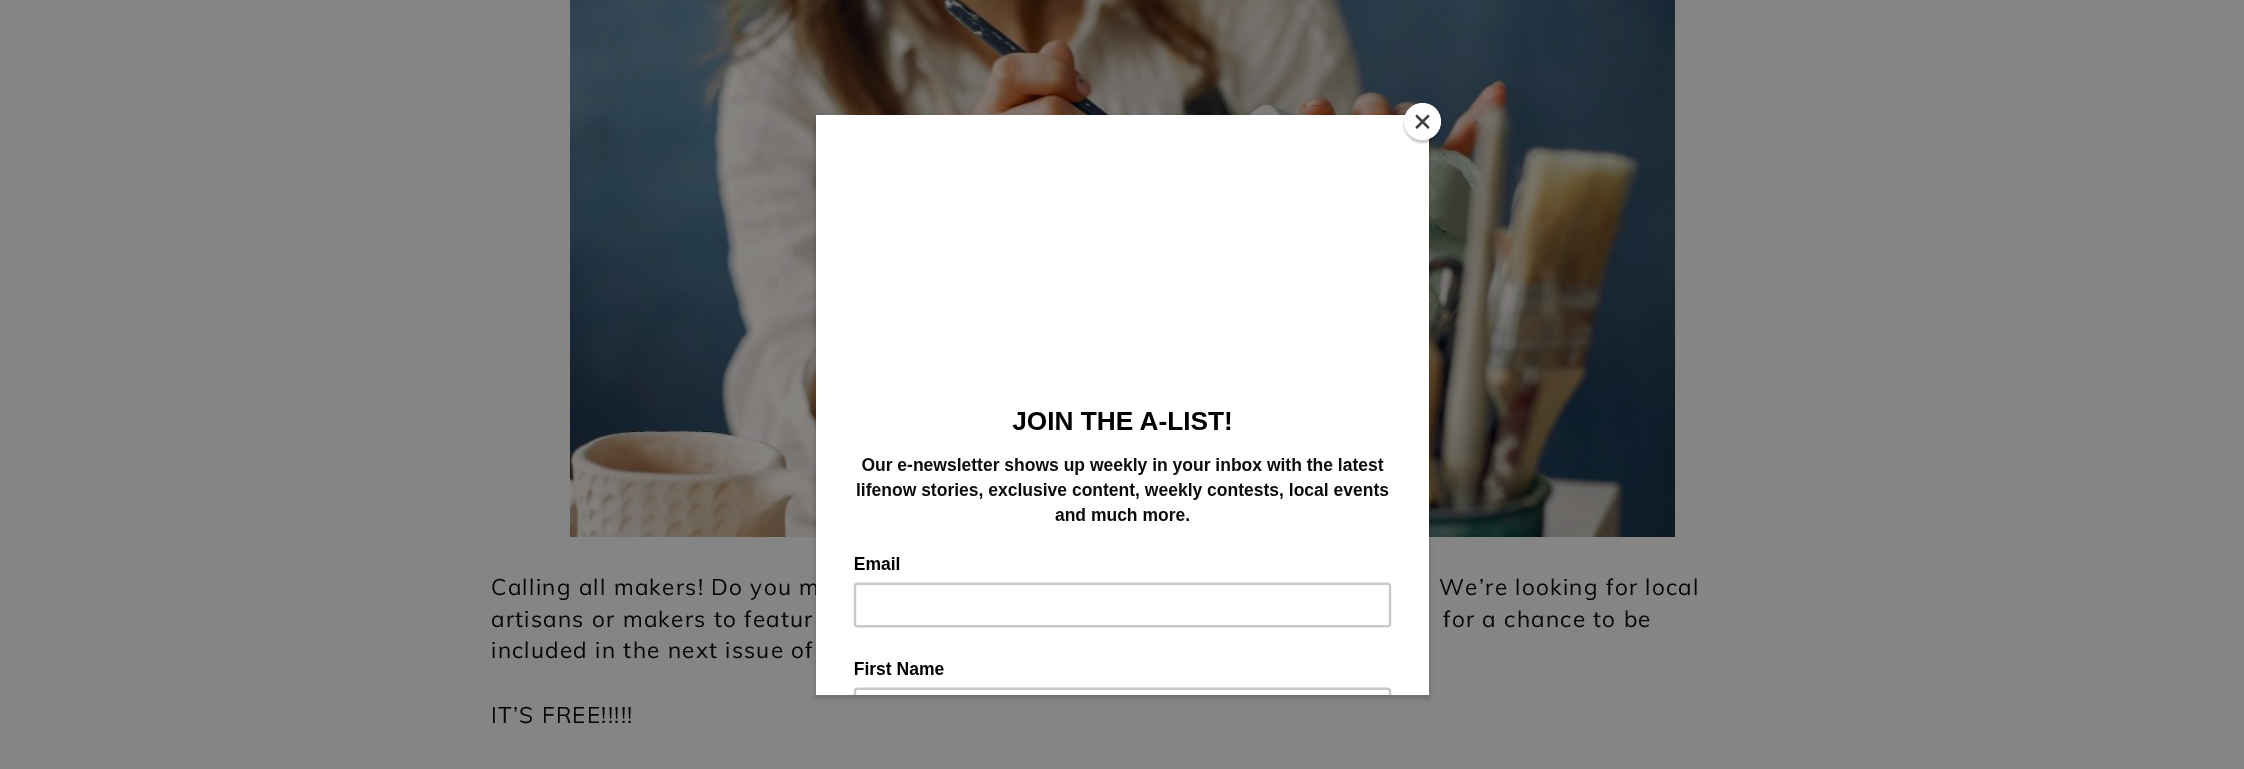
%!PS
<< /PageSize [2244 769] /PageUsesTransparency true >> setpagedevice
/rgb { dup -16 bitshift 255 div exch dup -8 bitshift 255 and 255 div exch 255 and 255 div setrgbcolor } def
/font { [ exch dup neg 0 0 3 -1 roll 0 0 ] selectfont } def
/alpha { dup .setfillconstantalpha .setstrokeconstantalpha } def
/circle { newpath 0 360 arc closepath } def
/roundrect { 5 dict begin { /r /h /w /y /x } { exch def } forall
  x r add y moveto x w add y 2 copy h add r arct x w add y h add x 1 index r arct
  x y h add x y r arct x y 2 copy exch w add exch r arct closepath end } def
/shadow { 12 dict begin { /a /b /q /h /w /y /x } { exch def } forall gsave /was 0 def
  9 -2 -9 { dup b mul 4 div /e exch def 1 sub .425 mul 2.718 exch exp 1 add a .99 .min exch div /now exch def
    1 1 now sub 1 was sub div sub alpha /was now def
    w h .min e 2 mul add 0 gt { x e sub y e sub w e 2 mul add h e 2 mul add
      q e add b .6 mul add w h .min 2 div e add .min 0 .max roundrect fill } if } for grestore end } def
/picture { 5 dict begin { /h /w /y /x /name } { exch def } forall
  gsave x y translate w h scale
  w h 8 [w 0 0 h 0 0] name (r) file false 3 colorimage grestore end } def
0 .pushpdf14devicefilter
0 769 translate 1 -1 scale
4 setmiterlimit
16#858585 rgb
0 0 2244 769 rectfill
(pic2.raw) 570 0 1105 537 picture
16#000000 rgb
816 118 613 580 0 2.5 0.2 shadow
/Muli-Regular 22.5 font
16#060606 rgb
491 595 moveto 1.25 0 (Calling all makers! Do you m) ashow
(pic1.raw) 816 115 613 580 picture
16#000000 rgb
1404 105 37 38 18.5 1 0.2 shadow
16#FFFFFF rgb
1422.5 121.5 18.5 circle fill
16#414141 rgb
1428 114.5 moveto 1429.5 116.5 lineto 1417 129 lineto 1415.5 127 lineto closepath fill
1415.5 116.5 moveto 1417 114.5 lineto 1429.5 127 lineto 1428 129 lineto closepath fill
16#060606 rgb
1439 595 moveto 1.25 0 (We’re looking for local) ashow
491 627 moveto 1.25 0 (artisans or makers to featur) ashow
1443 627 moveto 1.25 0 (for a chance to be) ashow
491 658 moveto 1.25 0 (included in the next issue of) ashow
491 723 moveto 1.25 0 (IT’S FREE!!!!!) ashow
.poppdf14devicefilter showpage
